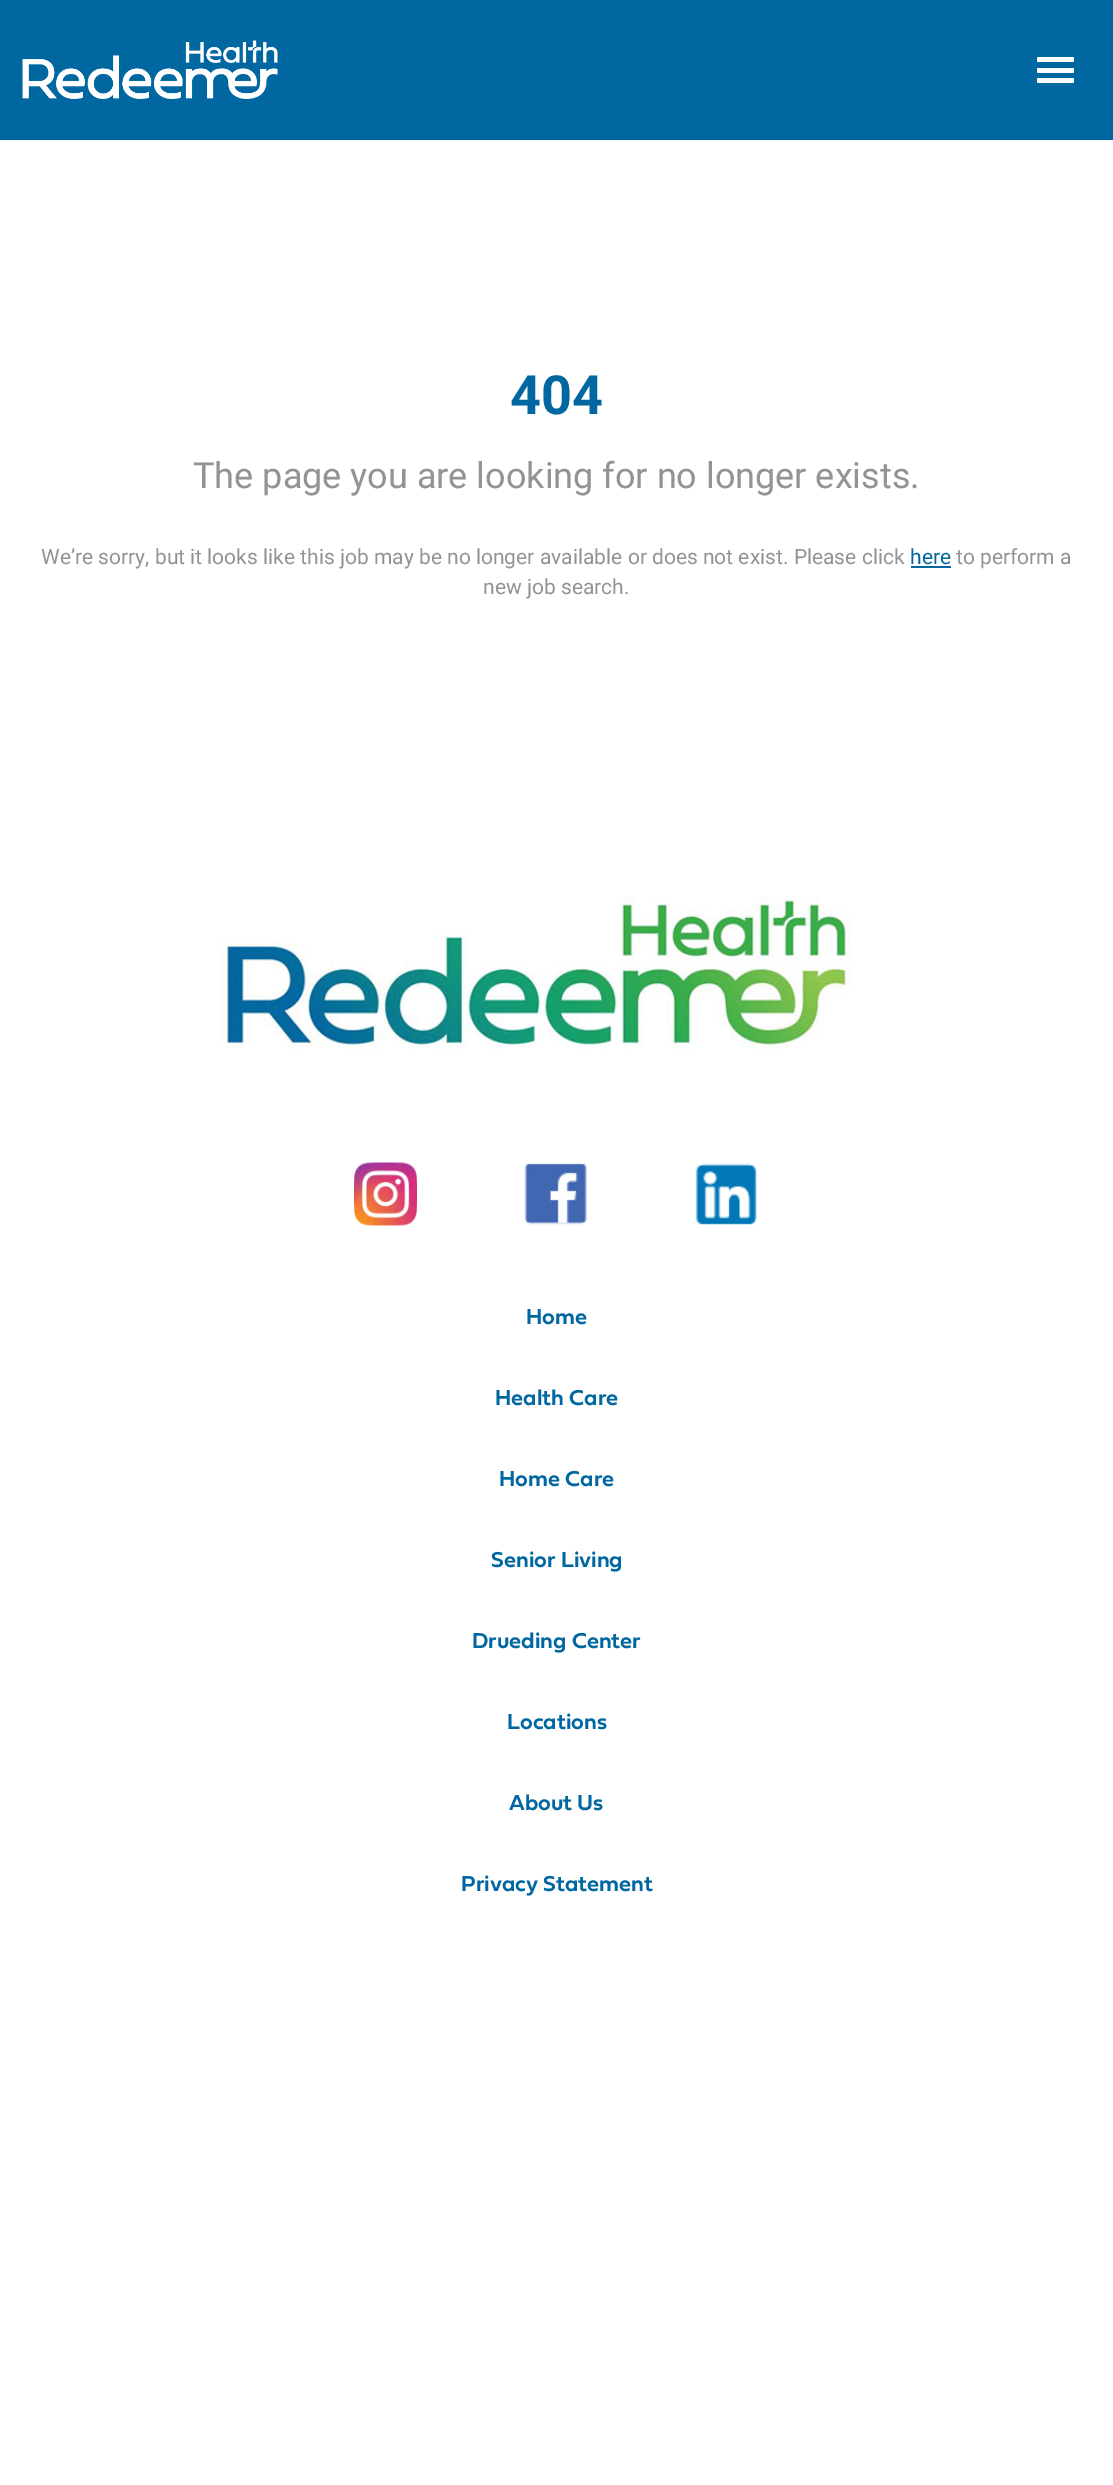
%!PS
<< /PageSize [1113 2485] >> setpagedevice
/rgb { dup -16 bitshift 255 div exch dup -8 bitshift 255 and 255 div exch 255 and 255 div setrgbcolor } def
/font { [ exch dup neg 0 0 3 -1 roll 0 0 ] selectfont } def
/text { moveto show } def
/roundrect { 5 dict begin { /r /h /w /y /x } { exch def } forall
  x r add y moveto x w add y 2 copy h add r arct x w add y h add x 1 index r arct
  x y h add x y r arct x y 2 copy exch w add exch r arct closepath end } def
/picture { 5 dict begin { /h /w /y /x /name } { exch def } forall
  gsave x y translate w h scale
  w h 8 [w 0 0 h 0 0] name (r) file false 3 colorimage grestore end } def
0 2485 translate 1 -1 scale
4 setmiterlimit
/s1 { /Roboto-Bold 54 font 16#0067A1 rgb } def
/s2 { /Roboto-Regular 36 font 16#939394 rgb } def
/s3 { /Roboto-Regular 21 font 16#939394 rgb } def
/s4 { /Roboto-Regular 21 font 16#0067A1 rgb } def
/s5 { /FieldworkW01-SemiBold 22.5 font 16#0067A1 rgb } def
16#FFFFFF rgb
0 0 1113 2485 rectfill
16#0067A1 rgb
0 0 1113 140 rectfill
(pic1.raw) 22 40 256 59 picture
16#FFFFFF rgb
1037 57 37 5 1.5 roundrect fill
1037 68 37 5 1.5 roundrect fill
1037 78 37 5 1.5 roundrect fill
s1
(404) 510 414 text
s2
(The page you are looking for no longer exists.) 193 488 text
s3
(We’re sorry, but it looks like this job may be no longer available or does not exist. Please click) 41 564 text
s4
(here) 910 564 text
911 566 40 2 rectfill
s3
(to perform a) 956 564 text
(new job search.) 483 594 text
(pic2.raw) 221 896 630 153 picture
(pic3.raw) 354 1162 63 64 picture
(pic4.raw) 524 1163 63 62 picture
(pic5.raw) 695 1163 62 62 picture
s5
(Home) 526 1324 text
(Health Care) 495 1405 text
(Home Care) 499 1486 text
(Senior Living) 491 1567 text
(Drueding Center) 472 1648 text
(Locations) 507 1729 text
(About Us) 509 1810 text
(Privacy Statement) 461 1891 text
showpage
